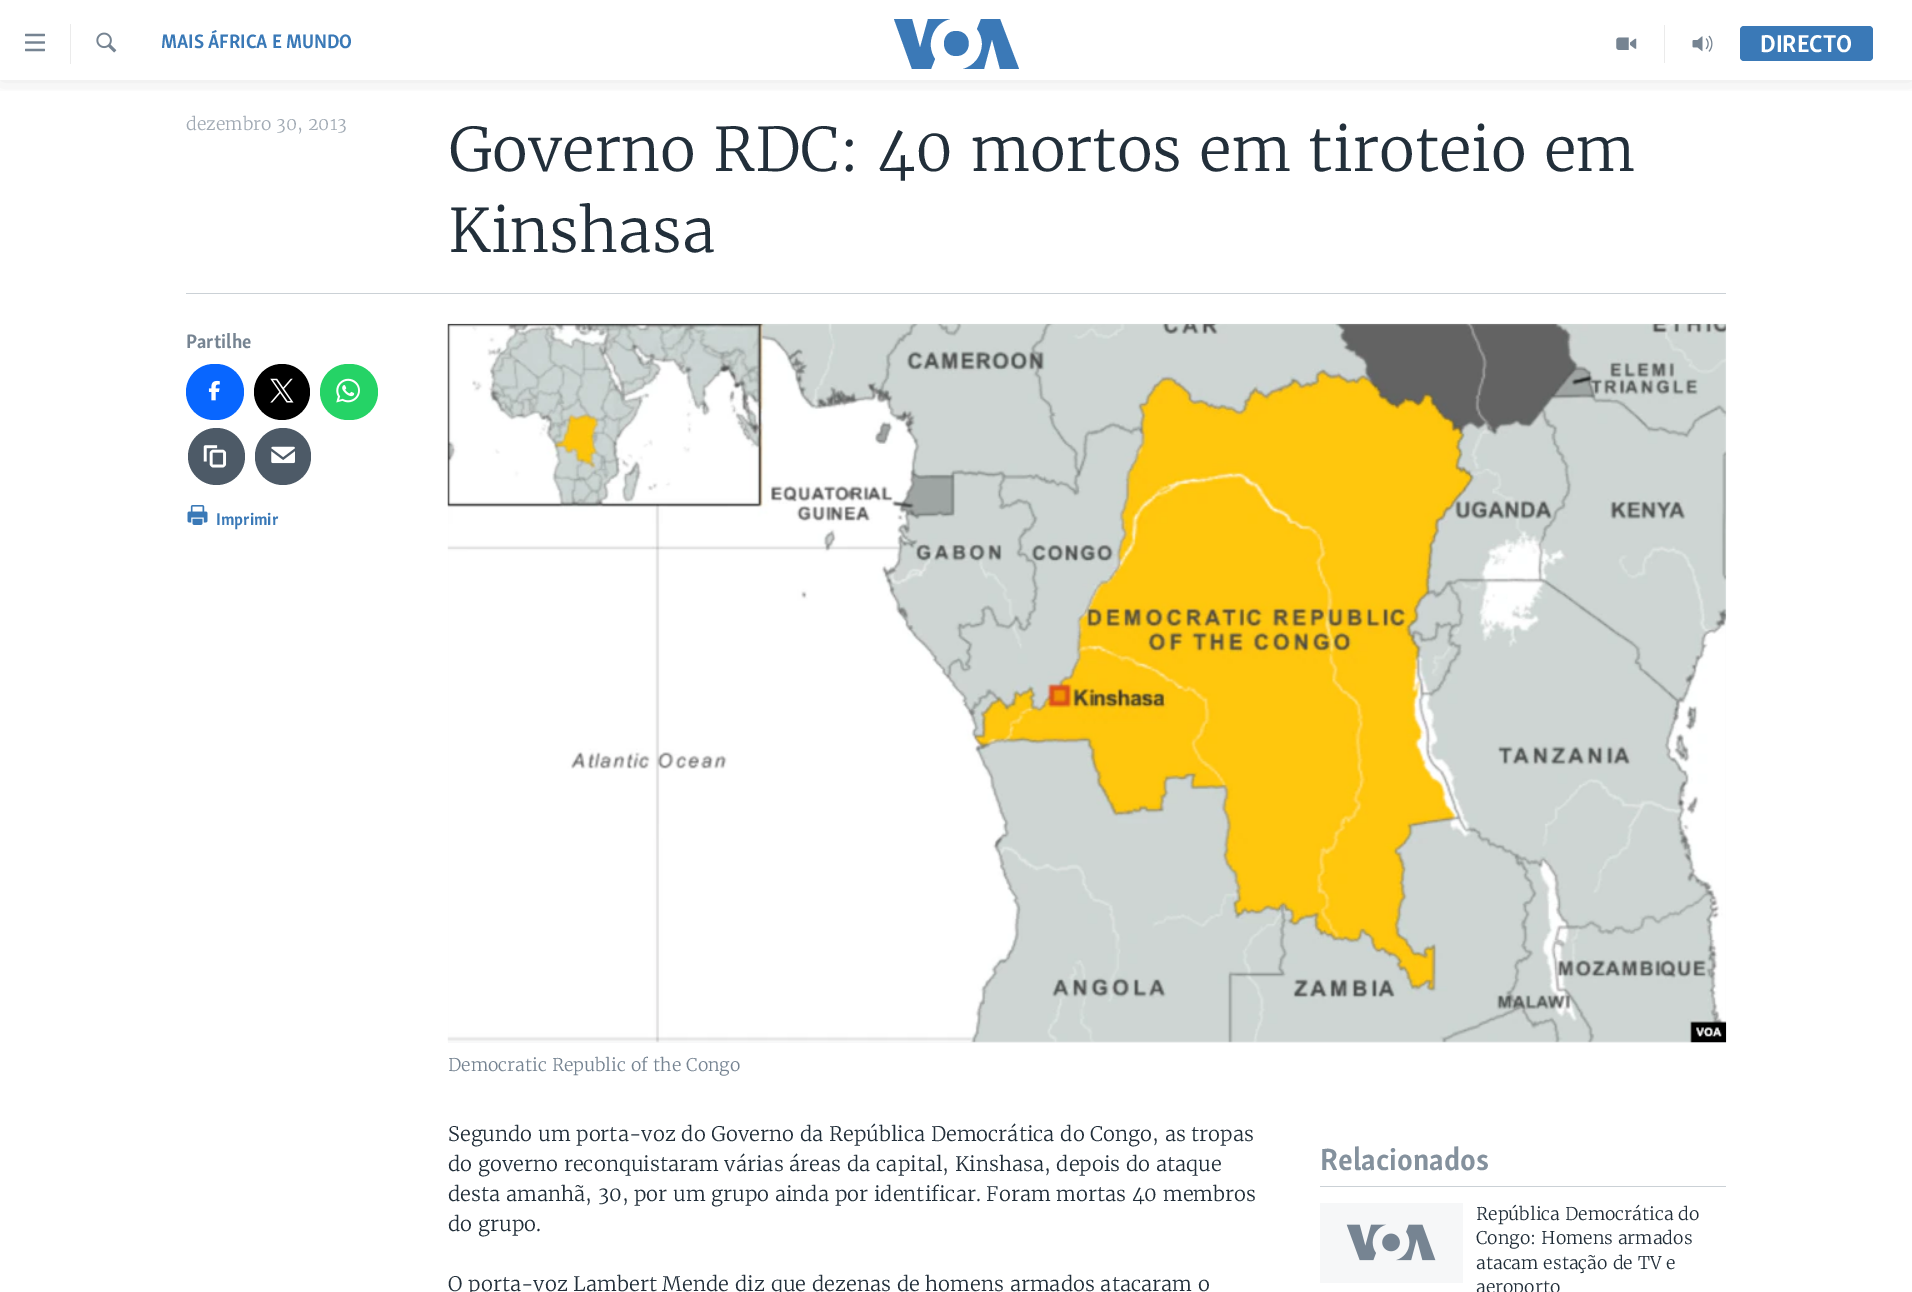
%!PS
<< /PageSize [1912 1292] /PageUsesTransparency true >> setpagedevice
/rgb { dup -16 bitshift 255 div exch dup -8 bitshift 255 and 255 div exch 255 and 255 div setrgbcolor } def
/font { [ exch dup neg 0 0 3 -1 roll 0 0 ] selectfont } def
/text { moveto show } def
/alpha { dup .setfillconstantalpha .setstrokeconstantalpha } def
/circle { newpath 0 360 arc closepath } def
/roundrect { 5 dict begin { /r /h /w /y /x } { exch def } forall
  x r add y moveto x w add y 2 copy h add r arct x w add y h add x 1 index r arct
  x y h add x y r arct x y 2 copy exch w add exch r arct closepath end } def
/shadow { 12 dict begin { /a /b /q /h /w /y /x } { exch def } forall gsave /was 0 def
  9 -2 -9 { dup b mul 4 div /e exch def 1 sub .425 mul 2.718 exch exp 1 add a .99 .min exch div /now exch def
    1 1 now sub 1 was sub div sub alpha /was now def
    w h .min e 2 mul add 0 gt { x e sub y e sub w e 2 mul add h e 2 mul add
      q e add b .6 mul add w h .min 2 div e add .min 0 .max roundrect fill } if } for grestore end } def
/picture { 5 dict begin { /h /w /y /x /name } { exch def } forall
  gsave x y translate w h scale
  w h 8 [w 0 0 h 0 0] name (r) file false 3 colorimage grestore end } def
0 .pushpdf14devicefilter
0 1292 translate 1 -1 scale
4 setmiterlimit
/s1 { /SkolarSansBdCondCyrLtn-Bold 20 font 16#3A79B7 rgb } def
/s2 { /SkolarSansBdCondCyrLtn-Bold 25 font 16#FFFFFF rgb } def
/s3 { /Merriweather-Light 17.5 font 16#A1AAB4 rgb } def
/s4 { /Merriweather-Light 60 font 16#222F3A rgb } def
/s5 { /SkolarSansBdCondCyrLtn-Bold 20 font 16#768492 rgb } def
/s6 { /SkolarSansBdCondCyrLtn-Bold 17.5 font 16#3A79B7 rgb } def
/s7 { /Merriweather-Light 17.5 font 16#768492 rgb } def
/s8 { /Merriweather-Light 20 font 16#222F3A rgb } def
/s9 { /SkolarSansBdCondCyrLtn-Bold 31.5 font 16#84919D rgb } def
/s10 { /Merriweather-Light 17.5 font 16#222F3A rgb } def
16#FFFFFF rgb
0 0 1912 1292 rectfill
gsave
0 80 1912 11 rectclip
16#000000 rgb
0 0 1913 80 0 12.5 0.1 shadow
grestore
(pic1.raw) 25 33 20 19 picture
16#EBEBEB rgb
70 24 1 40 rectfill
(pic2.raw) 96 32 21 21 picture
s1
(MAIS ÁFRICA E MUNDO) 161 48 text
16#3B79B7 rgb
935 59 moveto 931 69 lineto 912 69 lineto 894 19 lineto 912 19 lineto 920 48 lineto 928 19 lineto 950 19 lineto 933 23 925 44 935 59 curveto closepath 956 31 moveto 940 31 940 56 956 56 curveto 973 56 973 31 956 31 curveto closepath 982 44 moveto 982 56 974 66 963 69 curveto 984 69 lineto 992 39 lineto 1000 69 lineto 1019 69 lineto 1000 19 lineto 981 19 lineto 977 29 lineto 980 33 982 38 982 44 curveto closepath fill
16#EBEBEB rgb
1664 25 1 38 rectfill
(pic3.raw) 1616 37 21 13 picture
(pic4.raw) 1692 35 21 17 picture
16#3A79B7 rgb
1740 26 133 35 4 roundrect fill
s2
(DIRECTO) 1760 52 text
s3
(dezembro 30, 2013) 186 130 text
s4
(Governo RDC: 40 mortos em tiroteio em) 448 171 text
(Kinshasa) 448 252 text
16#CBD1D6 rgb
186 293 1540 1 rectfill
s5
(Partilhe) 186 348 text
16#0866FF rgb
186 364 58 56 28 roundrect fill
(pic5.raw) 208 380 12 21 picture
16#000000 rgb
282 392 28 circle fill
(pic6.raw) 270 378 24 25 picture
16#25D366 rgb
320 364 58 56 28 roundrect fill
(pic7.raw) 336 378 24 25 picture
16#4D5A67 rgb
216.5 456.5 28.5 circle fill
(pic8.raw) 203 445 24 23 picture
255 428 56 57 28 roundrect fill
(pic9.raw) 271 446 24 18 picture
(pic10.raw) 187 505 21 20 picture
s6
(Imprimir) 216 525 text
16#F6F7F8 rgb
448 324 1278 719 rectfill
(pic11.raw) 447 323 1280 720 picture
s7
(Democratic Republic of the Congo) 448 1071 text
s8
(Segundo um porta-voz do Governo da República Democrática do Congo, as tropas) 448 1141 text
(do governo reconquistaram várias áreas da capital, Kinshasa, depois do ataque) 448 1171 text
(desta amanhã, 30, por um grupo ainda por identificar. Foram mortas 40 membros) 448 1201 text
(do grupo.) 448 1231 text
(O porta-voz Lambert Mende diz que dezenas de homens armados atacaram o) 448 1291 text
16#CBD1D6 rgb
1320 1186 406 1 rectfill
s9
(Relacionados) 1320 1170 text
16#F6F7F8 rgb
1320 1203 143 80 rectfill
(pic12.raw) 1346 1224 90 37 picture
s10
(República Democrática do) 1476 1220 text
(Congo: Homens armados) 1476 1244 text
(atacam estação de TV e) 1476 1269 text
(aeroporto) 1476 1293 text
.poppdf14devicefilter showpage
